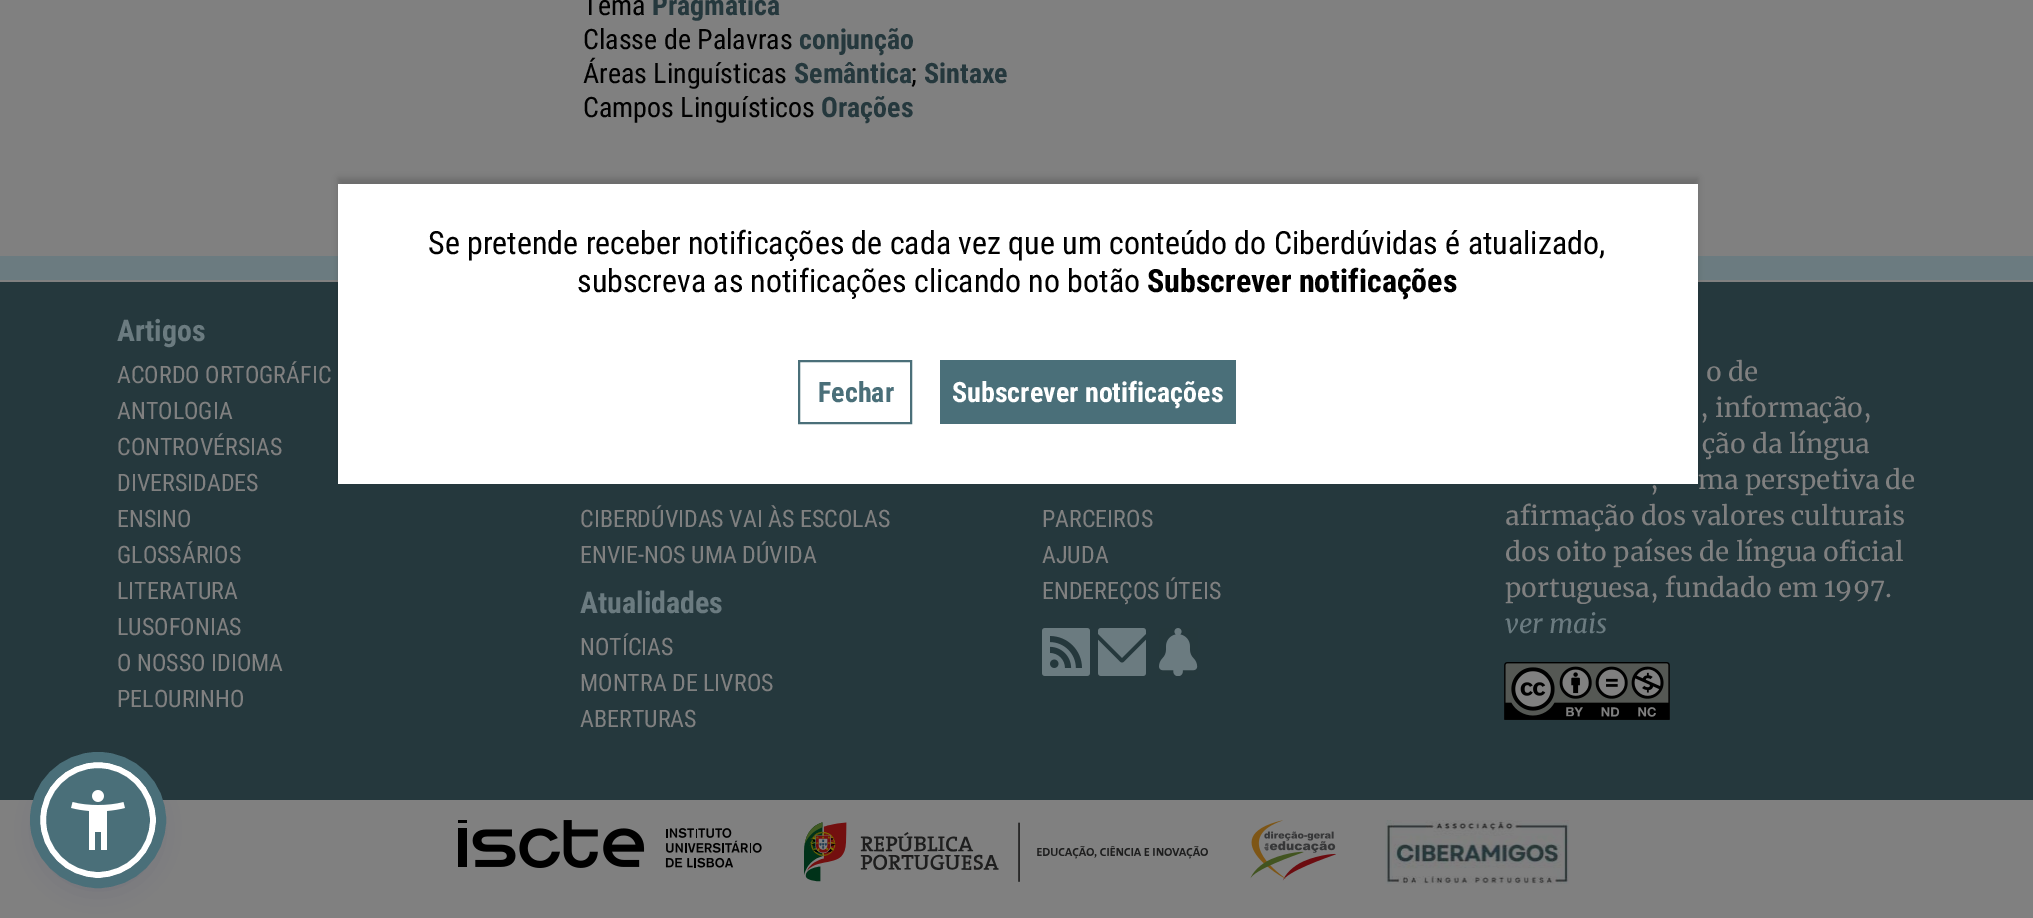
%!PS
<< /PageSize [2033 918] /PageUsesTransparency true >> setpagedevice
/rgb { dup -16 bitshift 255 div exch dup -8 bitshift 255 and 255 div exch 255 and 255 div setrgbcolor } def
/font { [ exch dup neg 0 0 3 -1 roll 0 0 ] selectfont } def
/text { moveto show } def
/alpha { dup .setfillconstantalpha .setstrokeconstantalpha } def
/circle { newpath 0 360 arc closepath } def
/roundrect { 5 dict begin { /r /h /w /y /x } { exch def } forall
  x r add y moveto x w add y 2 copy h add r arct x w add y h add x 1 index r arct
  x y h add x y r arct x y 2 copy exch w add exch r arct closepath end } def
/shadow { 12 dict begin { /a /b /q /h /w /y /x } { exch def } forall gsave /was 0 def
  9 -2 -9 { dup b mul 4 div /e exch def 1 sub .425 mul 2.718 exch exp 1 add a .99 .min exch div /now exch def
    1 1 now sub 1 was sub div sub alpha /was now def
    w h .min e 2 mul add 0 gt { x e sub y e sub w e 2 mul add h e 2 mul add
      q e add b .6 mul add w h .min 2 div e add .min 0 .max roundrect fill } if } for grestore end } def
/picture { 5 dict begin { /h /w /y /x /name } { exch def } forall
  gsave x y translate w h scale
  w h 8 [w 0 0 h 0 0] name (r) file false 3 colorimage grestore end } def
0 .pushpdf14devicefilter
0 918 translate 1 -1 scale
4 setmiterlimit
/s1 { /RobotoCondensed-Regular 28 font 16#000000 rgb } def
/s2 { /RobotoCondensed-Bold 28 font 16#25383D rgb } def
/s3 { /RobotoCondensed-Regular 32 font 16#000000 rgb } def
/s4 { /RobotoCondensed-Bold 32 font 16#000000 rgb } def
/s5 { /RobotoCondensed-Bold 28 font 16#4A6F79 rgb } def
/s6 { /RobotoCondensed-Bold 28 font 16#FFFFFF rgb } def
/s7 { /RobotoCondensed-Bold 30 font 16#6B7B80 rgb } def
/s8 { /RobotoCondensed-Regular 24 font 16#808080 rgb } def
/s9 { /Merriweather-Regular 26 font 16#808080 rgb } def
/s10 { /Merriweather-Italic 26 font 16#6B7B80 rgb } def
16#808080 rgb
0 0 2033 918 rectfill
s1
(Tema) 583 15 text
s2
(Pragmática) 652 15 text
s1
(Classe de Palavras) 583 49 text
s2
(conjunção) 799 49 text
s1
(Áreas Linguísticas) 583 83 text
s2
(Semântica) 794 83 text
s1
(;) 911 83 text
s2
(Sintaxe) 924 83 text
s1
(Campos Linguísticos) 583 117 text
s2
(Orações) 821 117 text
16#6B7B80 rgb
0 256 2033 24 rectfill
16#25383D rgb
0 282 2033 518 rectfill
16#000000 rgb
338 178 1360 300 0 3 0.15 shadow
16#FFFFFF rgb
338 184 1360 300 rectfill
s3
(Se pretende receber notificações de cada vez que um conteúdo do Ciberdúvidas é atualizado,) 428 254 text
(subscreva as notificações clicando no botão) 577 292 text
s4
(Subscrever notificações) 1147 292 text
16#4A6F79 rgb
2 setlinewidth
799 361 112 62 rectstroke
s5
(Fechar) 818 402 text
940 360 296 64 rectfill
s6
(Subscrever notificações) 952 402 text
s7
(Artigos) 117 341 text
s8
(ACORDO ORTOGRÁFIC) 117 383 text
(ANTOLOGIA) 117 419 text
(CONTROVÉRSIAS) 117 455 text
(DIVERSIDADES) 117 491 text
(ENSINO) 117 527 text
(GLOSSÁRIOS) 117 563 text
(LITERATURA) 117 599 text
(LUSOFONIAS) 117 635 text
(O NOSSO IDIOMA) 117 671 text
(PELOURINHO) 117 707 text
(CIBERDÚVIDAS VAI ÀS ESCOLAS) 580 527 text
(ENVIE-NOS UMA DÚVIDA) 580 563 text
s7
(Atualidades) 580 613 text
s8
(NOTÍCIAS) 580 655 text
(MONTRA DE LIVROS) 580 691 text
(ABERTURAS) 580 727 text
(PARCEIROS) 1042 527 text
(AJUDA) 1042 563 text
(ENDEREÇOS ÚTEIS) 1042 599 text
(pic1.raw) 1042 628 48 48 picture
(pic2.raw) 1098 628 48 48 picture
(pic3.raw) 1159 628 39 48 picture
s9
(o de) 1706 381 text
(, informação,) 1700 417 text
(ção da língua) 1702 453 text
(,) 1650 489 text
(ma perspetiva de) 1698 489 text
(afirmação dos valores culturais) 1505 525 text
(dos oito países de língua oficial) 1505 561 text
(portuguesa, fundado em 1997.) 1505 597 text
s10
(ver mais) 1505 633 text
(pic4.raw) 1504 662 166 58 picture
(pic5.raw) 458 820 304 48 picture
(pic6.raw) 804 822 404 60 picture
(pic7.raw) 1250 820 86 61 picture
(pic8.raw) 1385 820 184 64 picture
16#5D6494 rgb
40 766 116 116 58 4 0.2 shadow
16#252C61 rgb
40 772 116 116 58 15 0.15 shadow
16#4A6F79 rgb
98 820 55 circle gsave fill grestore
16#FFFFFF rgb
6 setlinewidth
stroke
16#4A6F79 rgb
10 setlinewidth
98 820 63 circle stroke
(pic9.raw) 71 790 54 60 picture
.poppdf14devicefilter showpage
